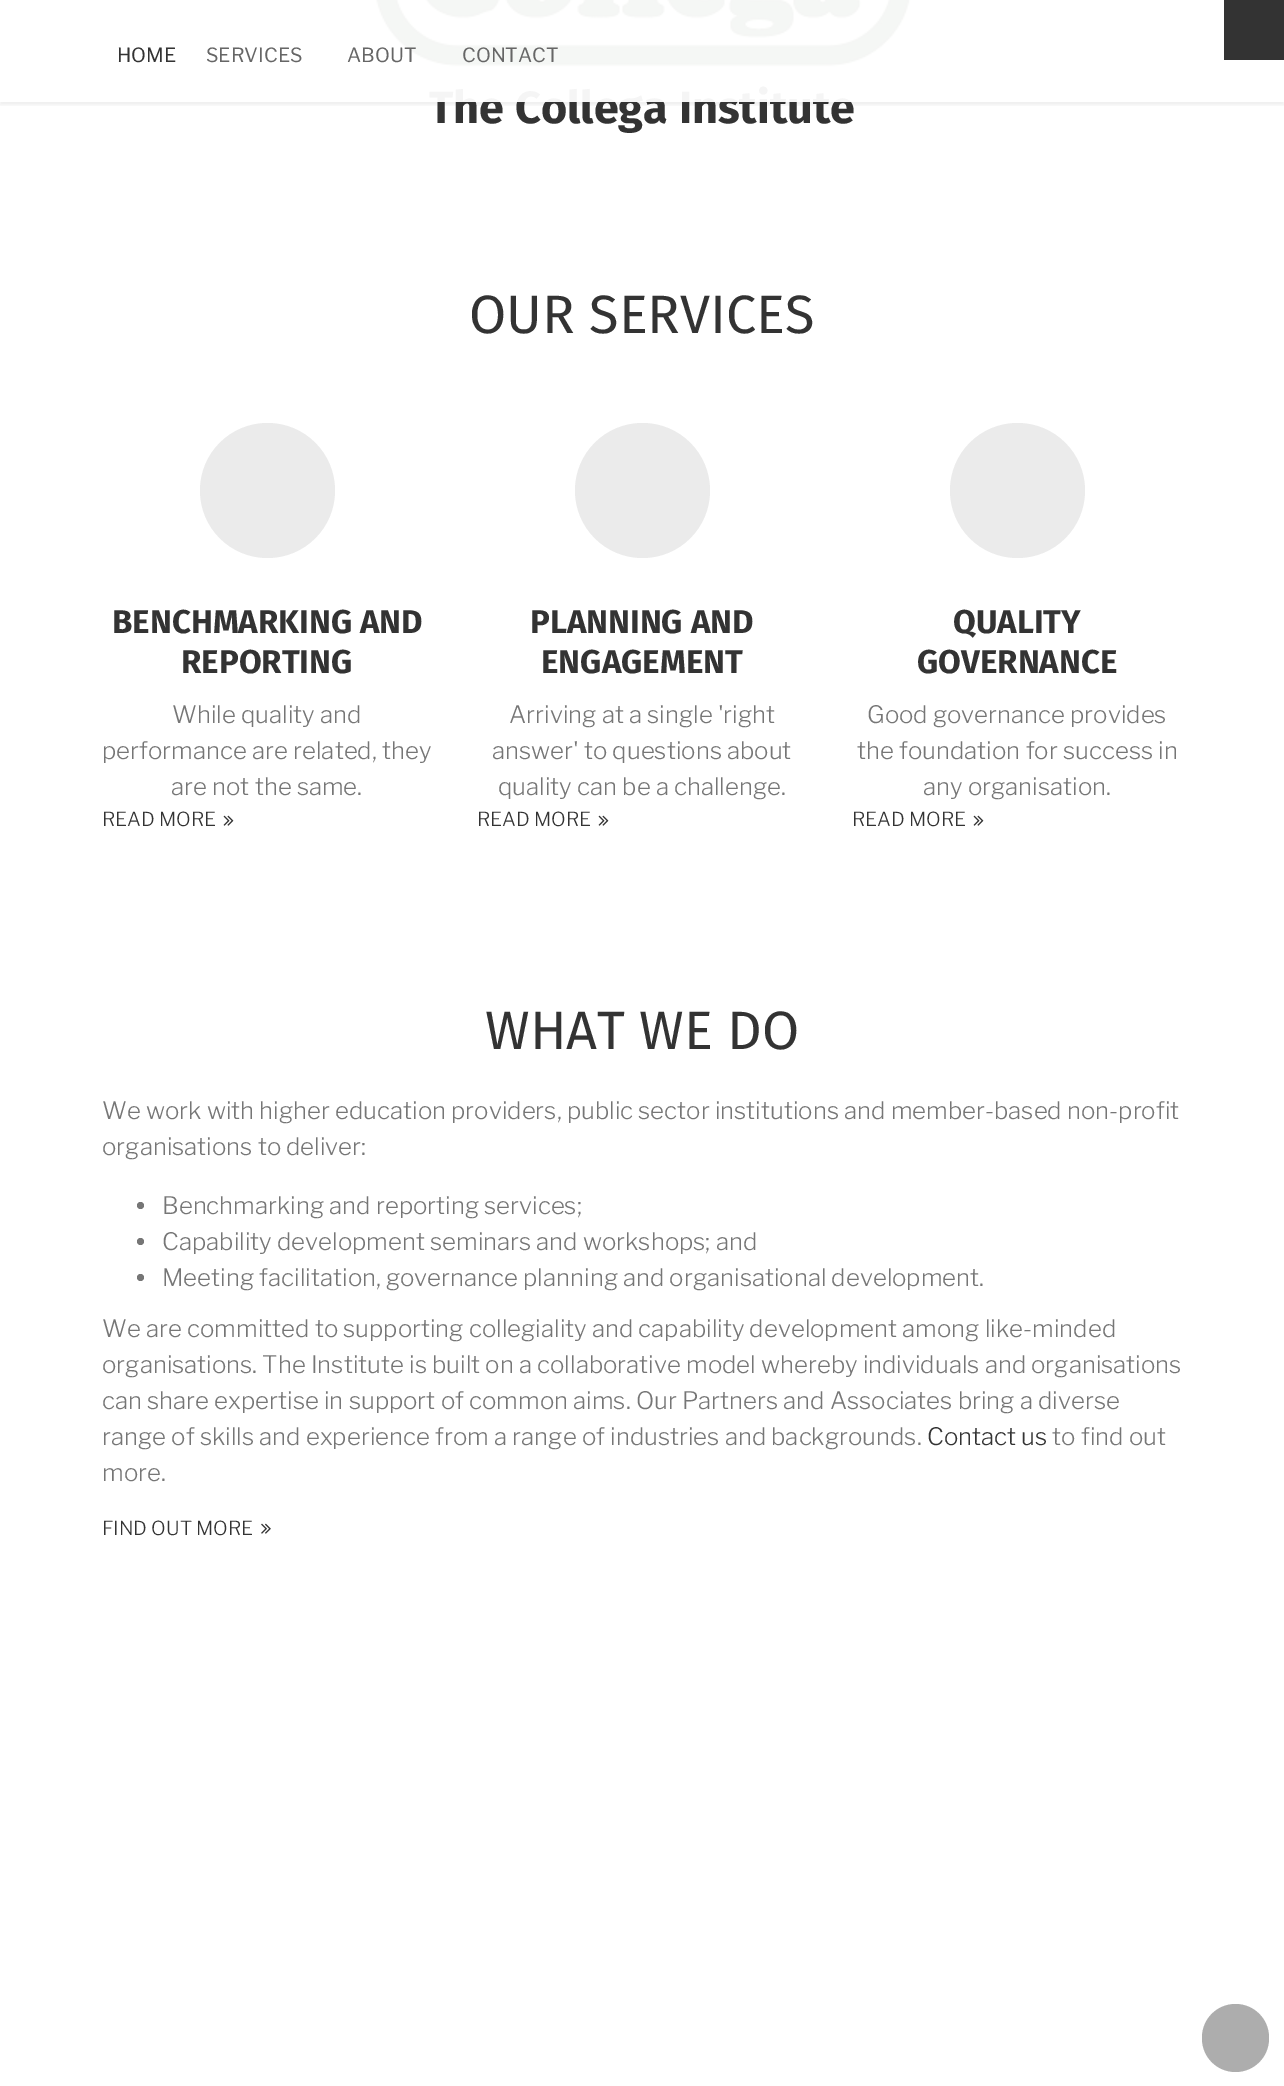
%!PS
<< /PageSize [1284 2086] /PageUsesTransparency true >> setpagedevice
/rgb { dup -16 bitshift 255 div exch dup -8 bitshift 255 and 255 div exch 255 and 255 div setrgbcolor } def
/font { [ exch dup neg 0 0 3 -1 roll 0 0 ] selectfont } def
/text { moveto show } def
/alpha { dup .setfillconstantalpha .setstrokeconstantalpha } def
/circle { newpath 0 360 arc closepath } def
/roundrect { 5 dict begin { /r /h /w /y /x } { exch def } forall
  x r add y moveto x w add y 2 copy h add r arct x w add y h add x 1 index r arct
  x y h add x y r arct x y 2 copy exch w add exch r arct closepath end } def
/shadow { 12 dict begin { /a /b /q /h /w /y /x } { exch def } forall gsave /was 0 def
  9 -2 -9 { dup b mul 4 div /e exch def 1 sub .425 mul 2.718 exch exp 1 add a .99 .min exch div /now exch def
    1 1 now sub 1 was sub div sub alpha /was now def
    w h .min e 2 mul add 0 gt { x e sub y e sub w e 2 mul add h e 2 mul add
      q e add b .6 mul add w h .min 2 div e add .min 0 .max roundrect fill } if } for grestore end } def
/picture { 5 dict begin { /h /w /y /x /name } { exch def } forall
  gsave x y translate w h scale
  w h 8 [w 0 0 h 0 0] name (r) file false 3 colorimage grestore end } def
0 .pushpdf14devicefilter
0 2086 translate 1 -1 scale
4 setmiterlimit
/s1 { /FiraSans-Bold 45 font 16#333333 rgb } def
/s2 { /LibreFranklin-Regular 19.5 font 16#333333 rgb } def
/s3 { /LibreFranklin-Regular 19.5 font 16#666666 rgb } def
/s4 { /FiraSans-Regular 54 font 16#333333 rgb } def
/s5 { /FiraSans-Bold 33 font 16#333333 rgb } def
/s6 { /LibreFranklin-Light 24 font 16#767676 rgb } def
/s7 { /LibreFranklin-Light 19.25 font 16#333333 rgb } def
/s8 { /LibreFranklin-Light 24 font 16#333333 rgb } def
16#FFFFFF rgb
0 0 1284 2086 rectfill
(pic1.raw) 370 0 541 69 picture
gsave
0 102 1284 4 rectclip
16#646464 rgb
0 3 1284 102 0 1.5 0.1 shadow
grestore
16#333333 rgb
1224 0 60 60 rectfill
s1
(The Collega Institute) 429 123 text
0.95 alpha
16#FFFFFF rgb
370 0 541 102 rectfill
1 alpha
s2
(HOME) 117 62 text
s3
(SERVICES) 206 62 text
(ABOUT) 347 62 text
(CONTACT) 462 62 text
s4
(OUR SERVICES) 469 333 text
16#EBEBEB rgb
267.5 490.5 67.5 circle fill
s5
(BENCHMARKING AND) 112 633 text
(REPORTING) 181 673 text
s6
(While quality and) 172 723 text
(performance are related, they) 102 759 text
(are not the same.) 171 795 text
s7
(READ MORE) 102 826 text
(pic2.raw) 223 815 11 11 picture
16#EBEBEB rgb
642.5 490.5 67.5 circle fill
s5
(PLANNING AND) 530 633 text
(ENGAGEMENT) 541 673 text
s6
(Arriving at a single 'right) 509 723 text
(answer' to questions about) 492 759 text
(quality can be a challenge.) 498 795 text
s7
(READ MORE) 477 826 text
(pic2.raw) 598 815 11 11 picture
16#EBEBEB rgb
1017.5 490.5 67.5 circle fill
s5
(QUALITY) 953 633 text
(GOVERNANCE) 917 673 text
s6
(Good governance provides) 867 723 text
(the foundation for success in) 857 759 text
(any organisation.) 923 795 text
s7
(READ MORE) 852 826 text
(pic2.raw) 973 815 11 11 picture
s4
(WHAT WE DO) 485 1049 text
s6
(We work with higher education providers, public sector institutions and member-based non-profit) 102 1119 text
(organisations to deliver:) 102 1155 text
140.5 1205.5 3.5 circle fill
(Benchmarking and reporting services;) 162 1214 text
140.5 1241.5 3.5 circle fill
(Capability development seminars and workshops; and) 162 1250 text
140.5 1277.5 3.5 circle fill
(Meeting facilitation, governance planning and organisational development.) 162 1286 text
(We are committed to supporting collegiality and capability development among like-minded) 102 1337 text
(organisations. The Institute is built on a collaborative model whereby individuals and organisations) 102 1373 text
(can share expertise in support of common aims. Our Partners and Associates bring a diverse) 102 1409 text
(range of skills and experience from a range of industries and backgrounds.) 102 1445 text
s8
(Contact us) 927 1445 text
s6
(to find out) 1052 1445 text
(more.) 102 1481 text
s7
(FIND OUT MORE) 102 1535 text
(pic3.raw) 261 1523 10 11 picture
16#ADADAD rgb
1202 2004 67 68 33.5 roundrect fill
.poppdf14devicefilter showpage
